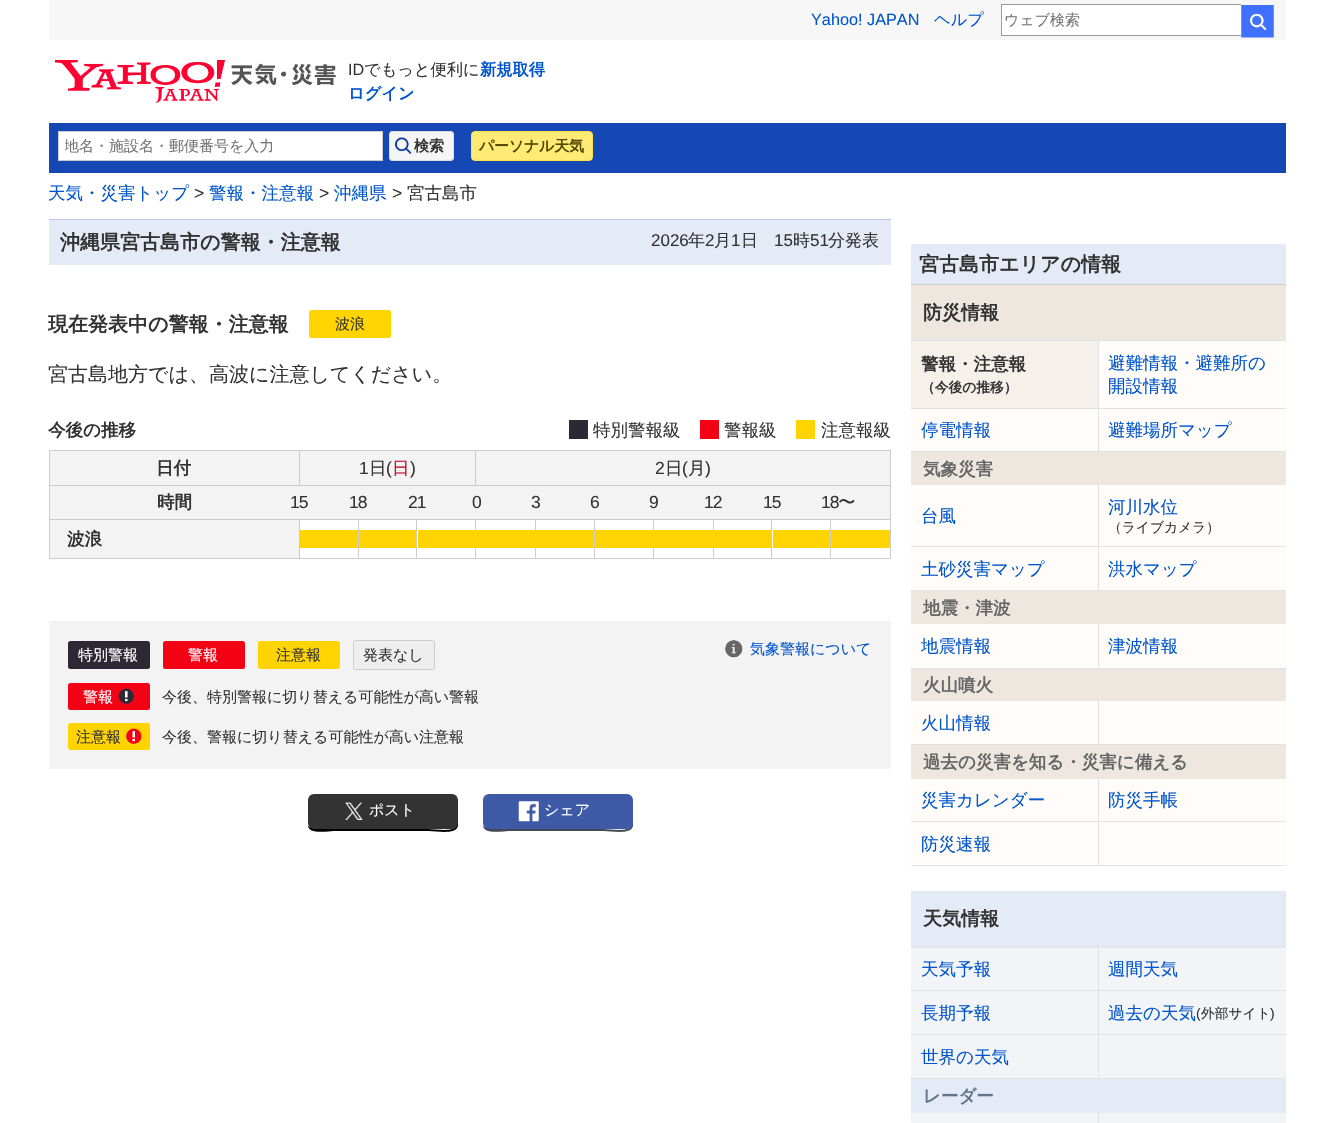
void draw(SkCanvas* canvas) {
	SkPaint fill;
	fill.setAntiAlias(true);
	auto makeFont = [&](const char* family, int weight, float size, bool italic = false) {
		SkFontStyle style(weight, SkFontStyle::kNormal_Width,
			italic ? SkFontStyle::kItalic_Slant : SkFontStyle::kUpright_Slant);
		SkFont result(fontMgr->matchFamilyStyle(family, style), size);
		result.setSubpixel(true);
		return result;
	};
	auto text = [&](const char* s, float x, float y, const SkFont& font) {
		canvas->drawString(s, x, y, font, fill);
	};
	auto spacedText = [&](const char* s, float x, float y, const SkFont& font, const SkPaint& ink, float letter, float word) {
		std::vector<SkGlyphID> glyphs(font.countText(s, strlen(s), SkTextEncoding::kUTF8));
		std::vector<float> xs(glyphs.size());
		font.textToGlyphs(s, strlen(s), SkTextEncoding::kUTF8, glyphs);
		font.getXPos(glyphs, xs, x);
		float extra = 0;
		for (size_t i = 0; i < glyphs.size(); i++) {
			xs[i] += extra;
			extra += letter + word * (glyphs[i] == font.unicharToGlyph(' '));
		}
		canvas->drawTextBlob(SkTextBlob::MakeFromPosHGlyphs(glyphs, xs, y, font), 0, 0, ink);
	};
	auto box = [&](float l, float t, float r, float b) {
		canvas->drawRect(SkRect::MakeLTRB(l, t, r, b), fill);
	};
	auto roundBox = [&](float l, float t, float r, float b, float radius) {
		canvas->drawRoundRect(SkRect::MakeLTRB(l, t, r, b), radius, radius, fill);
	};
	auto picture = [&](const char* path, float l, float t, float r, float b) {
		auto image = SkImages::DeferredFromEncodedData(SkData::MakeFromFileName(path));
		canvas->drawImageRect(image, SkRect::MakeLTRB(l, t, r, b), SkSamplingOptions());
	};
	canvas->clear(0xFFFFFFFF);
	fill.setColor(0xFFF7F7F8);
	box(49, 0, 1286, 40);
	fill.setColor(0xFFFFFFFF);
	box(1002, 5, 1241, 35);
	fill.setColor(0xFF999999);
	box(1001, 4, 1241, 5);
	box(1001, 35, 1241, 36);
	box(1001, 4, 1002, 36);
	picture("image0.png", 1241, 5, 1274, 38);
	picture("image1.png", 55, 60, 336, 103);
	fill.setColor(0xFF1548B5);
	box(49, 123, 1286, 173);
	fill.setColor(0xFFFFFFFF);
	canvas->drawRect(SkRect::MakeLTRB(58.5f, 131.5f, 382.5f, 160.5f), fill);
	fill.setStyle(SkPaint::kStroke_Style);
	fill.setStrokeWidth(1);
	fill.setColor(0xFFCCCCCC);
	canvas->drawRect(SkRect::MakeLTRB(58.5f, 131.5f, 382.5f, 160.5f), fill);
	fill.setStyle(SkPaint::kFill_Style);
	fill.setColor(0xFFF5F5F5);
	roundBox(389, 131, 454, 161, 4);
	picture("image2.png", 395, 137, 412, 154);
	fill.setStyle(SkPaint::kStroke_Style);
	fill.setColor(0xFFDCDCDC);
	canvas->drawRoundRect(SkRect::MakeLTRB(389.5f, 131.5f, 453.5f, 160.5f), 3.5f, 3.5f, fill);
	fill.setStyle(SkPaint::kFill_Style);
	fill.setColor(0xFFFFEA76);
	canvas->drawRoundRect(SkRect::MakeLTRB(471.5f, 131.5f, 592.5f, 160.5f), 3.5f, 3.5f, fill);
	fill.setStyle(SkPaint::kStroke_Style);
	fill.setColor(0xFFFFE243);
	canvas->drawRoundRect(SkRect::MakeLTRB(471.5f, 131.5f, 592.5f, 160.5f), 3.5f, 3.5f, fill);
	fill.setStyle(SkPaint::kFill_Style);
	fill.setColor(0xFFE5EAF7);
	box(49, 220, 891, 265);
	fill.setColor(0xFFBBC7E3);
	box(49, 219, 891, 220);
	fill.setColor(0xFFFFD400);
	roundBox(309, 310, 391, 338, 2.5f);
	fill.setColor(0xFF2D2934);
	box(569, 420, 588, 439);
	fill.setColor(0xFFF30216);
	box(700, 420, 719, 439);
	fill.setColor(0xFFFFD400);
	box(796, 420, 815, 439);
	fill.setColor(0xFFF3F3F3);
	box(50, 451, 299, 485);
	fill.setColor(0xFFCCCCCC);
	box(475, 450, 891, 451);
	box(830, 519, 891, 520);
	box(890, 485, 891, 559);
	box(890, 450, 891, 486);
	box(475, 485, 891, 486);
	box(475, 450, 476, 486);
	box(299, 450, 476, 451);
	box(299, 485, 476, 486);
	box(299, 450, 300, 486);
	box(49, 450, 300, 451);
	box(830, 558, 891, 559);
	box(830, 519, 831, 559);
	box(771, 519, 831, 520);
	box(771, 558, 831, 559);
	box(771, 519, 772, 559);
	box(713, 519, 773, 520);
	box(713, 558, 773, 559);
	box(713, 519, 714, 559);
	box(653, 519, 714, 520);
	box(653, 558, 714, 559);
	box(653, 519, 654, 559);
	box(594, 519, 654, 520);
	box(594, 558, 654, 559);
	box(594, 519, 595, 559);
	box(535, 519, 595, 520);
	box(535, 558, 595, 559);
	box(535, 519, 536, 559);
	box(475, 519, 536, 520);
	box(475, 558, 536, 559);
	box(475, 519, 476, 559);
	box(416, 519, 476, 520);
	box(416, 558, 476, 559);
	box(416, 519, 417, 559);
	box(358, 519, 418, 520);
	box(358, 558, 418, 559);
	box(358, 519, 359, 559);
	box(299, 519, 359, 520);
	box(299, 558, 359, 559);
	box(299, 519, 300, 559);
	box(49, 519, 300, 520);
	box(49, 558, 300, 559);
	box(49, 485, 50, 559);
	box(49, 485, 300, 486);
	box(49, 450, 50, 486);
	fill.setColor(0xFFF3F3F3);
	box(300, 451, 475, 485);
	box(476, 451, 890, 485);
	box(50, 486, 890, 519);
	box(50, 520, 299, 558);
	fill.setColor(0xFFFFD400);
	box(300, 530, 358, 548);
	box(359, 530, 416, 548);
	box(418, 530, 475, 548);
	box(476, 530, 535, 548);
	box(536, 530, 594, 548);
	box(595, 530, 653, 548);
	box(654, 530, 713, 548);
	box(714, 530, 771, 548);
	box(773, 530, 830, 548);
	box(831, 530, 890, 548);
	fill.setColor(0xFFF3F3F3);
	box(49, 621, 891, 769);
	fill.setColor(0xFF2D2934);
	roundBox(68, 641, 150, 669, 2.5f);
	fill.setColor(0xFFF30216);
	roundBox(163, 641, 245, 669, 2.5f);
	fill.setColor(0xFFFFD400);
	roundBox(258, 641, 340, 669, 2.5f);
	fill.setColor(0xFFEEEEEE);
	canvas->drawRoundRect(SkRect::MakeLTRB(353.5f, 640.5f, 434.5f, 669.5f), 2, 2, fill);
	fill.setStyle(SkPaint::kStroke_Style);
	fill.setColor(0xFFCCCCCC);
	canvas->drawRoundRect(SkRect::MakeLTRB(353.5f, 640.5f, 434.5f, 669.5f), 2, 2, fill);
	picture("image3.png", 725, 640, 743, 658);
	fill.setStyle(SkPaint::kFill_Style);
	fill.setColor(0xFFF30216);
	roundBox(68, 683, 150, 710, 2.5f);
	picture("image4.png", 118, 688, 134, 704);
	fill.setColor(0xFFFFD400);
	roundBox(68, 723, 150, 750, 2.5f);
	picture("image5.png", 126, 728, 142, 744);
	fill.setColor(0xFF000000);
	canvas->drawPath(SkPathBuilder().moveTo(308, 825).cubicTo(308, 835, 326, 831, 337, 831).lineTo(429, 831).cubicTo(437, 831, 456, 835, 458, 826).lineTo(458, 806).lineTo(457, 800).lineTo(457, 824).cubicTo(456, 833, 437, 829, 428, 829).lineTo(312, 828).cubicTo(310, 828, 309, 827, 308, 825).close().detach(), fill);
	fill.setColor(0xFF333333);
	roundBox(308, 794, 458, 829, 6);
	picture("image6.png", 345, 802, 363, 820);
	fill.setColor(0xFF424856);
	canvas->drawPath(SkPathBuilder().moveTo(483, 825).cubicTo(483, 835, 501, 831, 512, 831).lineTo(604, 831).cubicTo(612, 831, 631, 835, 633, 826).lineTo(633, 806).lineTo(632, 800).lineTo(632, 824).cubicTo(631, 833, 612, 829, 603, 829).lineTo(487, 828).cubicTo(485, 828, 484, 827, 483, 825).close().detach(), fill);
	fill.setColor(0xFF3E59A6);
	roundBox(483, 794, 633, 829, 6);
	picture("image7.png", 518, 801, 539, 822);
	fill.setColor(0xFFE5EAF7);
	box(911, 244, 1286, 284);
	fill.setColor(0xFFFFFCF9);
	box(911, 341, 1286, 865);
	fill.setColor(0xFFEEE7E0);
	box(911, 285, 1286, 340);
	fill.setColor(0xFFCCCCCC);
	box(911, 284, 1286, 285);
	fill.setColor(0xFFE1E3E2);
	box(911, 340, 1286, 341);
	fill.setColor(0xFFF6F0EB);
	box(911, 341, 1098, 408);
	fill.setColor(0xFFEEE7E0);
	box(911, 452, 1286, 485);
	fill.setColor(0xFFE1E3E2);
	box(911, 451, 1286, 452);
	box(1098, 341, 1099, 453);
	box(911, 408, 1286, 409);
	box(911, 590, 1286, 591);
	box(1098, 485, 1099, 591);
	box(911, 546, 1286, 547);
	fill.setColor(0xFFEEE7E0);
	box(911, 591, 1286, 624);
	fill.setColor(0xFFE1E3E2);
	box(911, 668, 1286, 669);
	box(1098, 624, 1099, 669);
	fill.setColor(0xFFEEE7E0);
	box(911, 669, 1286, 701);
	fill.setColor(0xFFE1E3E2);
	box(911, 744, 1286, 745);
	box(1098, 701, 1099, 745);
	fill.setColor(0xFFEEE7E0);
	box(911, 745, 1286, 779);
	fill.setColor(0xFFE1E3E2);
	box(911, 865, 1286, 866);
	box(1098, 779, 1099, 865);
	box(911, 821, 1286, 822);
	fill.setColor(0xFFF3F4F8);
	box(911, 948, 1286, 1123);
	fill.setColor(0xFFE5EAF7);
	box(911, 891, 1286, 948);
	fill.setColor(0xFFE1E3E2);
	box(911, 946, 1286, 947);
	box(911, 1078, 1286, 1079);
	box(1098, 948, 1099, 1079);
	box(911, 990, 1286, 991);
	box(911, 1034, 1286, 1035);
	fill.setColor(0xFFE5EAF7);
	box(911, 1079, 1286, 1113);
	fill.setColor(0xFFE1E3E2);
	box(1098, 1113, 1099, 1123);
	auto font1 = makeFont("Liberation Sans", 400, 16.25f);
	fill.setColor(0xFF0055CC);
	text("Yahoo! JAPAN", 811, 25, font1);
	auto font2 = makeFont("WenQuanYi Zen Hei", 500, 16.25f);
	text("ヘルプ", 934, 25, font2);
	auto font3 = makeFont("WenQuanYi Zen Hei", 500, 15);
	fill.setColor(0xFF757575);
	text("ウェブ検索", 1004, 25, font3);
	fill.setColor(0xFF333333);
	text("ID", 348, 75, font1);
	text("でもっと便利に", 364, 75, font2);
	auto font4 = makeFont("WenQuanYi Zen Hei", 700, 16.25f);
	fill.setColor(0xFF0055CC);
	text("新規取得", 480, 75, font4);
	text("ログイン", 348, 99, font4);
	canvas->save();
	canvas->clipRect(SkRect::MakeLTRB(65, 136, 375, 158));
	fill.setColor(0xFF757575);
	text("地名・施設名・郵便番号を入力", 64, 151, font3);
	canvas->restore();
	auto font5 = makeFont("WenQuanYi Zen Hei", 700, 15);
	fill.setColor(0xFF333333);
	text("検索", 414, 151, font5);
	fill.setColor(0xFF514900);
	spacedText("パーソナル天気", 479, 151, font5, fill, -0.25f, 0);
	auto font6 = makeFont("WenQuanYi Zen Hei", 500, 17.5f);
	fill.setColor(0xFF0055CC);
	text("天気・災害トップ", 48, 199, font6);
	auto font7 = makeFont("Liberation Sans", 400, 17.5f);
	fill.setColor(0xFF333333);
	text(">", 194, 199, font7);
	fill.setColor(0xFF0055CC);
	text("警報・注意報", 209, 199, font6);
	fill.setColor(0xFF333333);
	text(">", 319, 199, font7);
	fill.setColor(0xFF0055CC);
	text("沖縄県", 334, 199, font6);
	fill.setColor(0xFF333333);
	text(">", 392, 199, font7);
	text("宮古島市", 407, 199, font6);
	auto font8 = makeFont("WenQuanYi Zen Hei", 700, 20);
	text("沖縄県宮古島市の警報・注意報", 60, 249, font8);
	auto font9 = makeFont("Liberation Sans", 400, 17);
	text("2026", 651, 246, font9);
	auto font10 = makeFont("WenQuanYi Zen Hei", 500, 17);
	text("年", 688, 246, font10);
	text("2", 705, 246, font9);
	text("月", 714, 246, font10);
	text("1", 731, 246, font9);
	text("日", 741, 246, font10);
	text("15", 774, 246, font9);
	text("時", 793, 246, font10);
	text("51", 810, 246, font9);
	text("分発表", 828, 246, font10);
	text("現在発表中の警報・注意報", 48, 331, font8);
	text("波浪", 335, 329, font3);
	auto font11 = makeFont("WenQuanYi Zen Hei", 500, 20);
	text("宮古島地方では、高波に注意してください。", 48, 381, font11);
	auto font12 = makeFont("WenQuanYi Zen Hei", 700, 17.5f);
	text("今後の推移", 48, 436, font12);
	text("特別警報級", 593, 436, font6);
	text("警報級", 724, 436, font6);
	text("注意報級", 821, 436, font6);
	text("日付", 156, 474, font12);
	text("1", 359, 474, font7);
	text("日", 369, 474, font6);
	text("(", 386, 474, font7);
	fill.setColor(0xFFC1132E);
	text("日", 392, 474, font6);
	fill.setColor(0xFF333333);
	text(")", 410, 474, font7);
	text("2", 655, 474, font7);
	text("日", 665, 474, font6);
	text("(", 682, 474, font7);
	text("月", 688, 474, font6);
	text(")", 705, 474, font7);
	text("時間", 157, 508, font12);
	spacedText("15", 290, 508, font7, fill, -1, 0);
	spacedText("18", 349, 508, font7, fill, -1, 0);
	spacedText("21", 408, 508, font7, fill, -1, 0);
	spacedText("0", 472, 508, font7, fill, -1, 0);
	spacedText("3", 531, 508, font7, fill, -1, 0);
	spacedText("6", 590, 508, font7, fill, -1, 0);
	spacedText("9", 649, 508, font7, fill, -1, 0);
	spacedText("12", 704, 508, font7, fill, -1, 0);
	spacedText("15", 763, 508, font7, fill, -1, 0);
	spacedText("18", 821, 508, font7, fill, -1, 0);
	spacedText("〜", 838, 508, font6, fill, -1, 0);
	text("波浪", 67, 545, font12);
	fill.setColor(0xFFFFFFFF);
	text("特別警報", 78, 660, font3);
	text("警報", 188, 660, font3);
	fill.setColor(0xFF333333);
	text("注意報", 276, 660, font3);
	text("発表なし", 363, 660, font3);
	fill.setColor(0xFF0055CC);
	text("気象警報について", 750, 654, font3);
	fill.setColor(0xFFFFFFFF);
	text("警報", 83, 702, font3);
	fill.setColor(0xFF333333);
	text("今後、特別警報に切り替える可能性が高い警報", 162, 702, font3);
	text("注意報", 76, 742, font3);
	text("今後、警報に切り替える可能性が高い注意報", 162, 742, font3);
	fill.setColor(0xFFFFFFFF);
	text("ポスト", 369, 815, font3);
	text("シェア", 544, 815, font3);
	fill.setColor(0xFF333333);
	text("宮古島市エリアの情報", 919, 271, font8);
	auto font13 = makeFont("WenQuanYi Zen Hei", 700, 19);
	text("防災情報", 923, 319, font13);
	text("警報・注意報", 921, 370, font12);
	auto font14 = makeFont("WenQuanYi Zen Hei", 700, 13.75f);
	text("（今後の推移）", 921, 392, font14);
	fill.setColor(0xFF0055CC);
	text("避難情報・避難所の", 1108, 369, font6);
	text("開設情報", 1108, 392, font6);
	text("停電情報", 921, 436, font6);
	text("避難場所マップ", 1108, 436, font6);
	fill.setColor(0xFF666666);
	text("気象災害", 923, 475, font12);
	fill.setColor(0xFF0055CC);
	text("台風", 921, 522, font6);
	text("河川水位", 1108, 513, font6);
	auto font15 = makeFont("WenQuanYi Zen Hei", 500, 13.75f);
	fill.setColor(0xFF333333);
	text("（ライブカメラ）", 1108, 532, font15);
	fill.setColor(0xFF0055CC);
	text("土砂災害マップ", 921, 575, font6);
	text("洪水マップ", 1108, 575, font6);
	fill.setColor(0xFF666666);
	text("地震・津波", 923, 614, font12);
	fill.setColor(0xFF0055CC);
	text("地震情報", 921, 652, font6);
	text("津波情報", 1108, 652, font6);
	fill.setColor(0xFF666666);
	text("火山噴火", 923, 691, font12);
	fill.setColor(0xFF0055CC);
	text("火山情報", 921, 729, font6);
	fill.setColor(0xFF666666);
	text("過去の災害を知る・災害に備える", 923, 768, font12);
	fill.setColor(0xFF0055CC);
	text("災害カレンダー", 921, 806, font6);
	text("防災手帳", 1108, 806, font6);
	text("防災速報", 921, 850, font6);
	fill.setColor(0xFF333333);
	text("天気情報", 923, 925, font13);
	fill.setColor(0xFF0055CC);
	text("天気予報", 921, 975, font6);
	text("週間天気", 1108, 975, font6);
	text("長期予報", 921, 1019, font6);
	text("過去の天気", 1108, 1019, font6);
	auto font16 = makeFont("Liberation Sans", 400, 13.75f);
	fill.setColor(0xFF333333);
	text("(", 1196, 1018, font16);
	text("外部サイト", 1201, 1018, font15);
	text(")", 1270, 1018, font16);
	fill.setColor(0xFF0055CC);
	text("世界の天気", 921, 1063, font6);
	fill.setColor(0xFF617589);
	text("レーダー", 923, 1102, font12);
}
